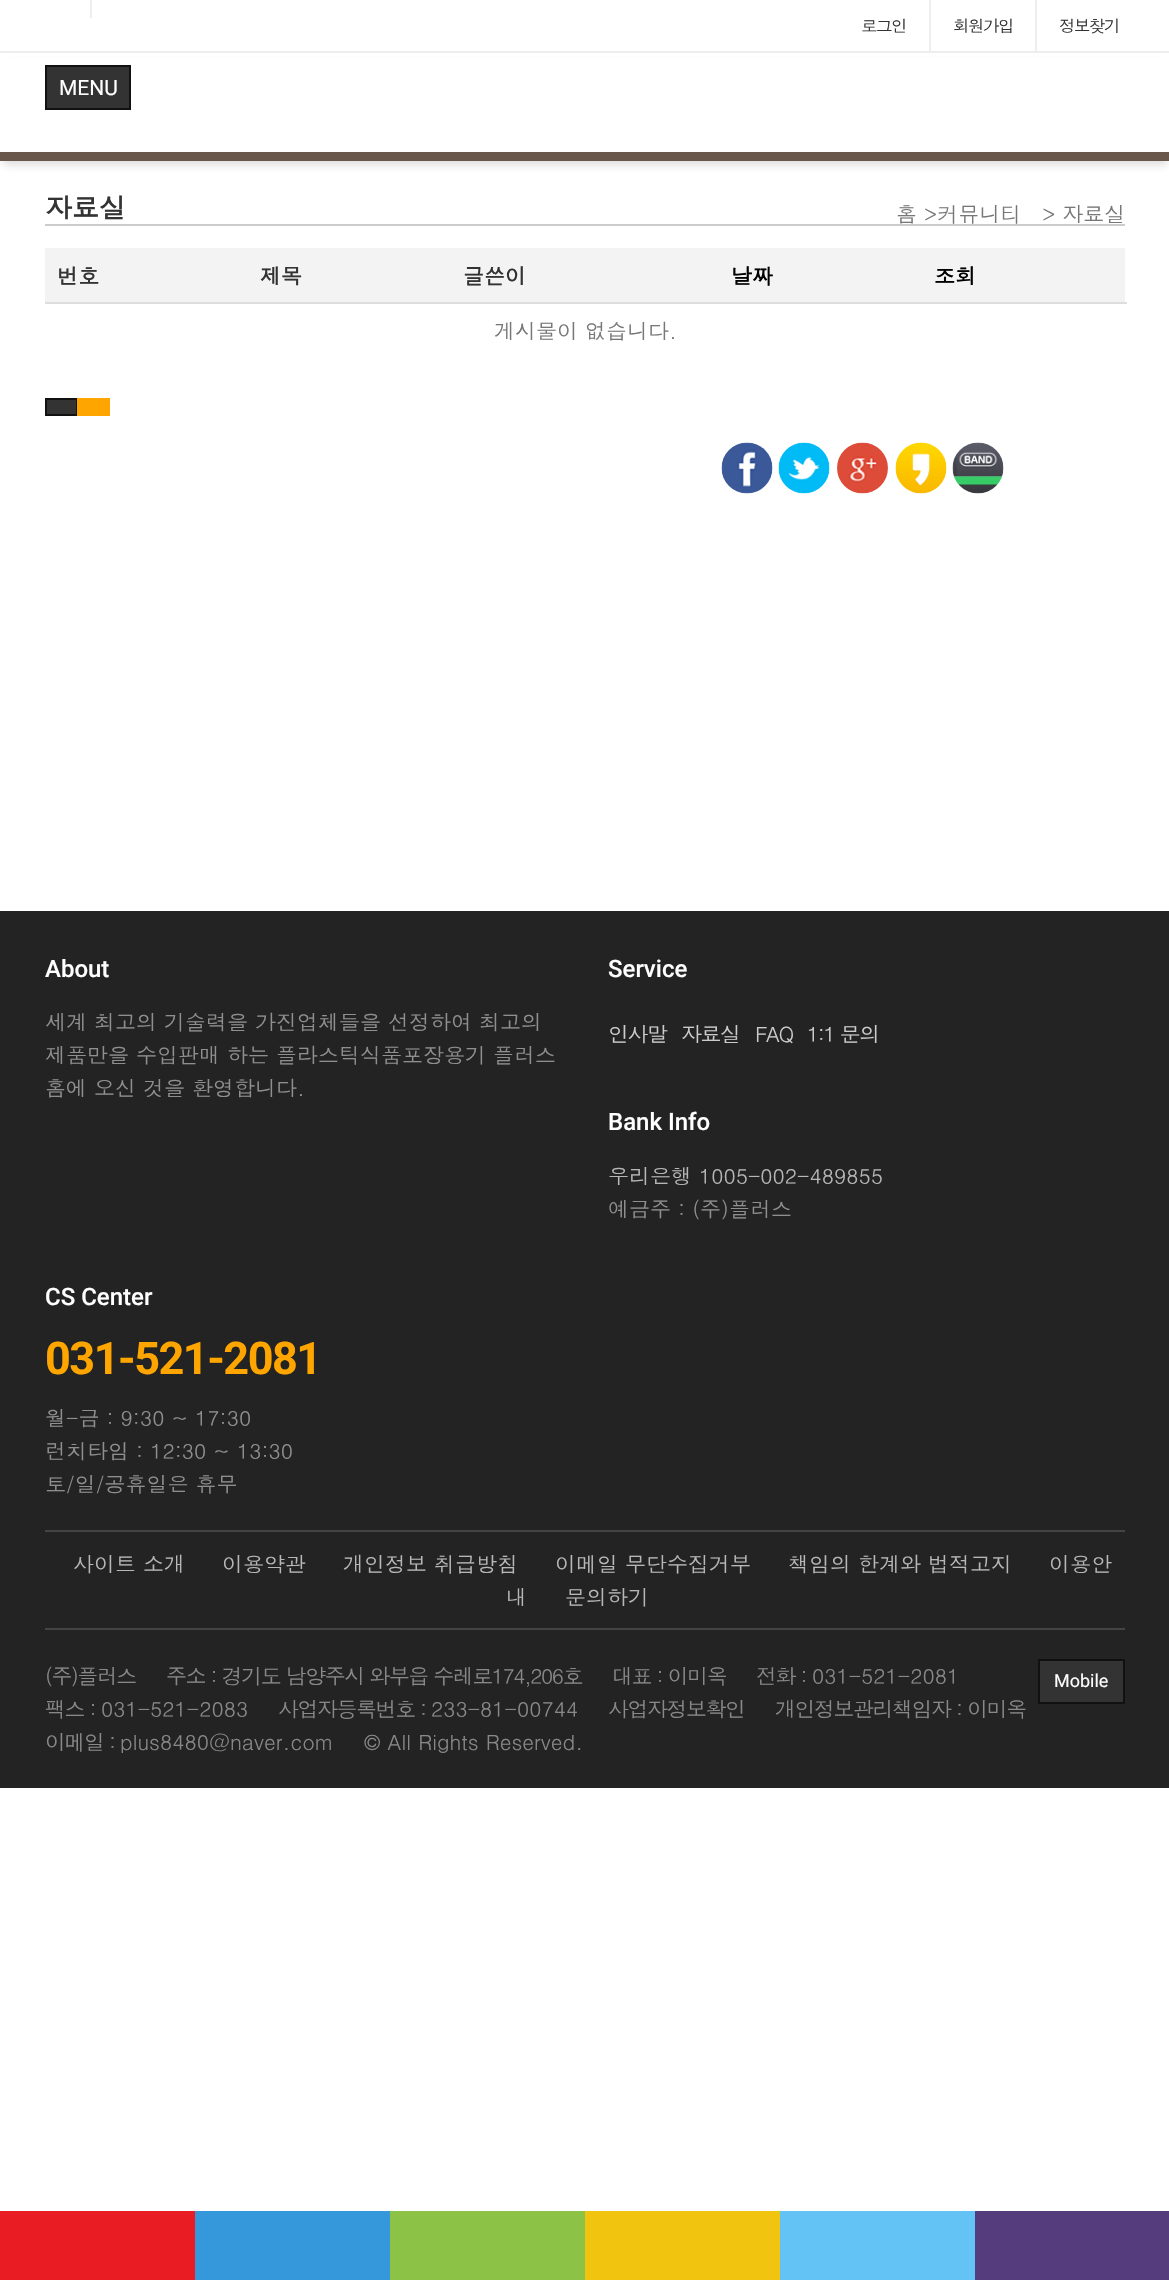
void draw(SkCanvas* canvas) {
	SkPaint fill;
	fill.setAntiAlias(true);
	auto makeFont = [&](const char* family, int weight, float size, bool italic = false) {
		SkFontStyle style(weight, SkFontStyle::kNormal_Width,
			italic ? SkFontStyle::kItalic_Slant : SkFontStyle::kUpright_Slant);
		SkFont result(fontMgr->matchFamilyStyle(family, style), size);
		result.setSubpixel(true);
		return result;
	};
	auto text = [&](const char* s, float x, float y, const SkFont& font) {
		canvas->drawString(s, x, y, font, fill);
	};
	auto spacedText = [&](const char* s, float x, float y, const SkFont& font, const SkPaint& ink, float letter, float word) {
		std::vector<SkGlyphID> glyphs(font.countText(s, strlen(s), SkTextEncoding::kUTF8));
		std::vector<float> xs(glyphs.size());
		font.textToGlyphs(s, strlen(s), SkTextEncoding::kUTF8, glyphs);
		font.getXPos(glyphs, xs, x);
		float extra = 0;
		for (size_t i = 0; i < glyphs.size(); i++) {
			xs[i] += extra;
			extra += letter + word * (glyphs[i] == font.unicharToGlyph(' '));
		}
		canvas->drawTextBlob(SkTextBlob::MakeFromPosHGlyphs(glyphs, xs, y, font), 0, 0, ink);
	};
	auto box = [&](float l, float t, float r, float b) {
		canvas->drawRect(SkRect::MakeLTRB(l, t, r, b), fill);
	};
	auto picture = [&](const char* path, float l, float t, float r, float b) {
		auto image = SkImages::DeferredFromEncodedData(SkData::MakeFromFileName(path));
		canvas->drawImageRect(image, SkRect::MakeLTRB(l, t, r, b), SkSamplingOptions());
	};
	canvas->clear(0xFFFFFFFF);
	fill.setColor(0xFFEEEEEE);
	box(0, 51, 1169, 53);
	box(90, 0, 92, 18);
	box(929, 0, 931, 51);
	box(1035, 0, 1037, 51);
	fill.setColor(0x26191919);
	fill.setMaskFilter(SkMaskFilter::MakeBlur(kNormal_SkBlurStyle, 4));
	canvas->drawRect(SkRect::MakeLTRB(3, 63, 1167, 165), fill);
	fill.setMaskFilter(nullptr);
	fill.setColor(0xFFFFFFFF);
	box(0, 57, 1169, 152);
	fill.setColor(0xFF333333);
	canvas->drawRect(SkRect::MakeLTRB(46, 66, 130, 109), fill);
	fill.setStyle(SkPaint::kStroke_Style);
	fill.setStrokeWidth(2);
	fill.setColor(0xFF111111);
	canvas->drawRect(SkRect::MakeLTRB(46, 66, 130, 109), fill);
	fill.setStyle(SkPaint::kFill_Style);
	fill.setColor(0xFF68574A);
	box(0, 152, 1169, 161);
	fill.setColor(0xFFCCCCCC);
	box(45, 224, 1125, 226);
	fill.setColor(0xFFF3F3F3);
	box(45, 248, 1125, 302);
	fill.setColor(0xFFDDDDDD);
	box(45, 302, 1127, 304);
	fill.setColor(0xFF333333);
	canvas->drawRect(SkRect::MakeLTRB(46, 399, 77, 415), fill);
	fill.setStyle(SkPaint::kStroke_Style);
	fill.setColor(0xFF111111);
	canvas->drawRect(SkRect::MakeLTRB(46, 399, 77, 415), fill);
	fill.setStyle(SkPaint::kFill_Style);
	fill.setColor(0xFFFFA500);
	box(77, 398, 110, 416);
	picture("image0.png", 721, 442, 773, 494);
	picture("image1.png", 778, 442, 830, 494);
	picture("image2.png", 837, 442, 888, 494);
	picture("image3.png", 895, 442, 947, 494);
	picture("image4.png", 952, 442, 1004, 494);
	fill.setColor(0xFF232323);
	box(0, 911, 1169, 1788);
	fill.setColor(0xFF444444);
	box(45, 1530, 1125, 1532);
	box(45, 1628, 1125, 1630);
	fill.setColor(0xFF333333);
	canvas->drawRect(SkRect::MakeLTRB(1039, 1660, 1124, 1703), fill);
	fill.setStyle(SkPaint::kStroke_Style);
	fill.setColor(0xFF111111);
	canvas->drawRect(SkRect::MakeLTRB(1039, 1660, 1124, 1703), fill);
	fill.setStyle(SkPaint::kFill_Style);
	fill.setColor(0xFFE91B23);
	box(0, 2211, 195, 2280);
	fill.setColor(0xFF3498DB);
	box(195, 2211, 390, 2280);
	fill.setColor(0xFF8CC346);
	box(390, 2211, 585, 2280);
	fill.setColor(0xFFF1C40F);
	box(585, 2211, 780, 2280);
	fill.setColor(0xFF64C3F5);
	box(780, 2211, 975, 2280);
	fill.setColor(0xFF553C7D);
	box(975, 2211, 1169, 2280);
	auto font1 = makeFont("Dotum", 400, 16.5f);
	fill.setColor(0xFF333333);
	spacedText("로그인", 861, 32, font1, fill, -1.5f, 0);
	spacedText("회원가입", 953, 32, font1, fill, -1.5f, 0);
	spacedText("정보찾기", 1059, 32, font1, fill, -1.5f, 0);
	auto font2 = makeFont("Roboto", 400, 21);
	fill.setColor(0xFFFFFFFF);
	text("MENU", 59, 95, font2);
	auto font3 = makeFont("Dotum", 700, 27);
	fill.setColor(0xFF333333);
	text("자료실", 45, 218, font3);
	auto font4 = makeFont("Dotum", 400, 21);
	fill.setColor(0xFF777777);
	text("홈 >커뮤니티   > 자료실", 896, 222, font4);
	auto font5 = makeFont("Dotum", 700, 21);
	fill.setColor(0xFF333333);
	text("번호", 57, 284, font5);
	text("제목", 260, 284, font5);
	text("글쓴이", 463, 284, font5);
	fill.setColor(0xFF000000);
	text("날짜", 731, 284, font5);
	text("조회", 934, 284, font5);
	fill.setColor(0xFF777777);
	text("게시물이 없습니다.", 494, 339, font4);
	auto font6 = makeFont("Roboto", 500, 24);
	fill.setColor(0xFFFFFFFF);
	text("About", 45, 977, font6);
	fill.setColor(0xFF8F8F8F);
	text("세계 최고의 기술력을 가진업체들을 선정하여 최고의", 45, 1030, font4);
	text("제품만을 수입판매 하는 플라스틱식품포장용기 플러스", 45, 1063, font4);
	text("홈에 오신 것을 환영합니다.", 45, 1096, font4);
	fill.setColor(0xFFFFFFFF);
	text("Service", 608, 977, font6);
	fill.setColor(0xFFCCCCCC);
	spacedText("인사말", 608, 1042, font4, fill, -1.5f, 0);
	spacedText("자료실", 681, 1042, font4, fill, -1.5f, 0);
	spacedText("FAQ", 755, 1042, font4, fill, -1.5f, 0);
	spacedText("1:1 문의", 807, 1042, font4, fill, -1.5f, 0);
	fill.setColor(0xFFFFFFFF);
	text("Bank Info", 608, 1130, font6);
	fill.setColor(0xFFB7B7B7);
	text("우리은행 1005-002-489855", 608, 1184, font4);
	fill.setColor(0xFF8F8F8F);
	text("예금주 : (주)플러스", 608, 1217, font4);
	fill.setColor(0xFFFFFFFF);
	text("CS Center", 45, 1305, font6);
	auto font7 = makeFont("Roboto", 700, 45);
	fill.setColor(0xFFFFA500);
	spacedText("031-521-2081", 45, 1374, font7, fill, -1.5f, 0);
	fill.setColor(0xFF8F8F8F);
	text("월-금 : 9:30 ~ 17:30", 45, 1426, font4);
	text("런치타임 : 12:30 ~ 13:30", 45, 1459, font4);
	text("토/일/공휴일은 휴무", 45, 1492, font4);
	fill.setColor(0xFFB7B7B7);
	text("사이트 소개", 73, 1572, font4);
	text("이용약관", 222, 1572, font4);
	text("개인정보 취급방침", 343, 1572, font4);
	text("이메일 무단수집거부", 555, 1572, font4);
	text("책임의 한계와 법적고지", 788, 1572, font4);
	text("이용안", 1049, 1572, font4);
	text("내", 506, 1605, font4);
	text("문의하기", 565, 1605, font4);
	fill.setColor(0xFF888888);
	spacedText("(주)플러스", 45, 1684, font4, fill, -1.5f, 0);
	spacedText("주소 : 경기도 남양주시 와부읍 수레로174,206호", 166, 1684, font4, fill, -1.5f, 0);
	spacedText("대표 : 이미옥", 612, 1684, font4, fill, -1.5f, 0);
	spacedText("전화 :", 756, 1684, font4, fill, -1.5f, 0);
	text("031-521-2081", 812, 1684, font4);
	spacedText("팩스 :", 45, 1717, font4, fill, -1.5f, 0);
	text("031-521-2083", 101, 1717, font4);
	spacedText("사업자등록번호 :", 278, 1717, font4, fill, -1.5f, 0);
	text("233-81-00744", 431, 1717, font4);
	spacedText("사업자정보확인", 608, 1717, font4, fill, -1.5f, 0);
	spacedText("개인정보관리책임자 : 이미옥", 775, 1717, font4, fill, -1.5f, 0);
	spacedText("이메일 :", 45, 1750, font4, fill, -1.5f, 0);
	text("plus8480@naver.com", 120, 1750, font4);
	text("© All Rights Reserved.", 364, 1750, font4);
	auto font8 = makeFont("Roboto", 400, 18);
	fill.setColor(0xFFFFFFFF);
	text("Mobile", 1054, 1687, font8);
}
